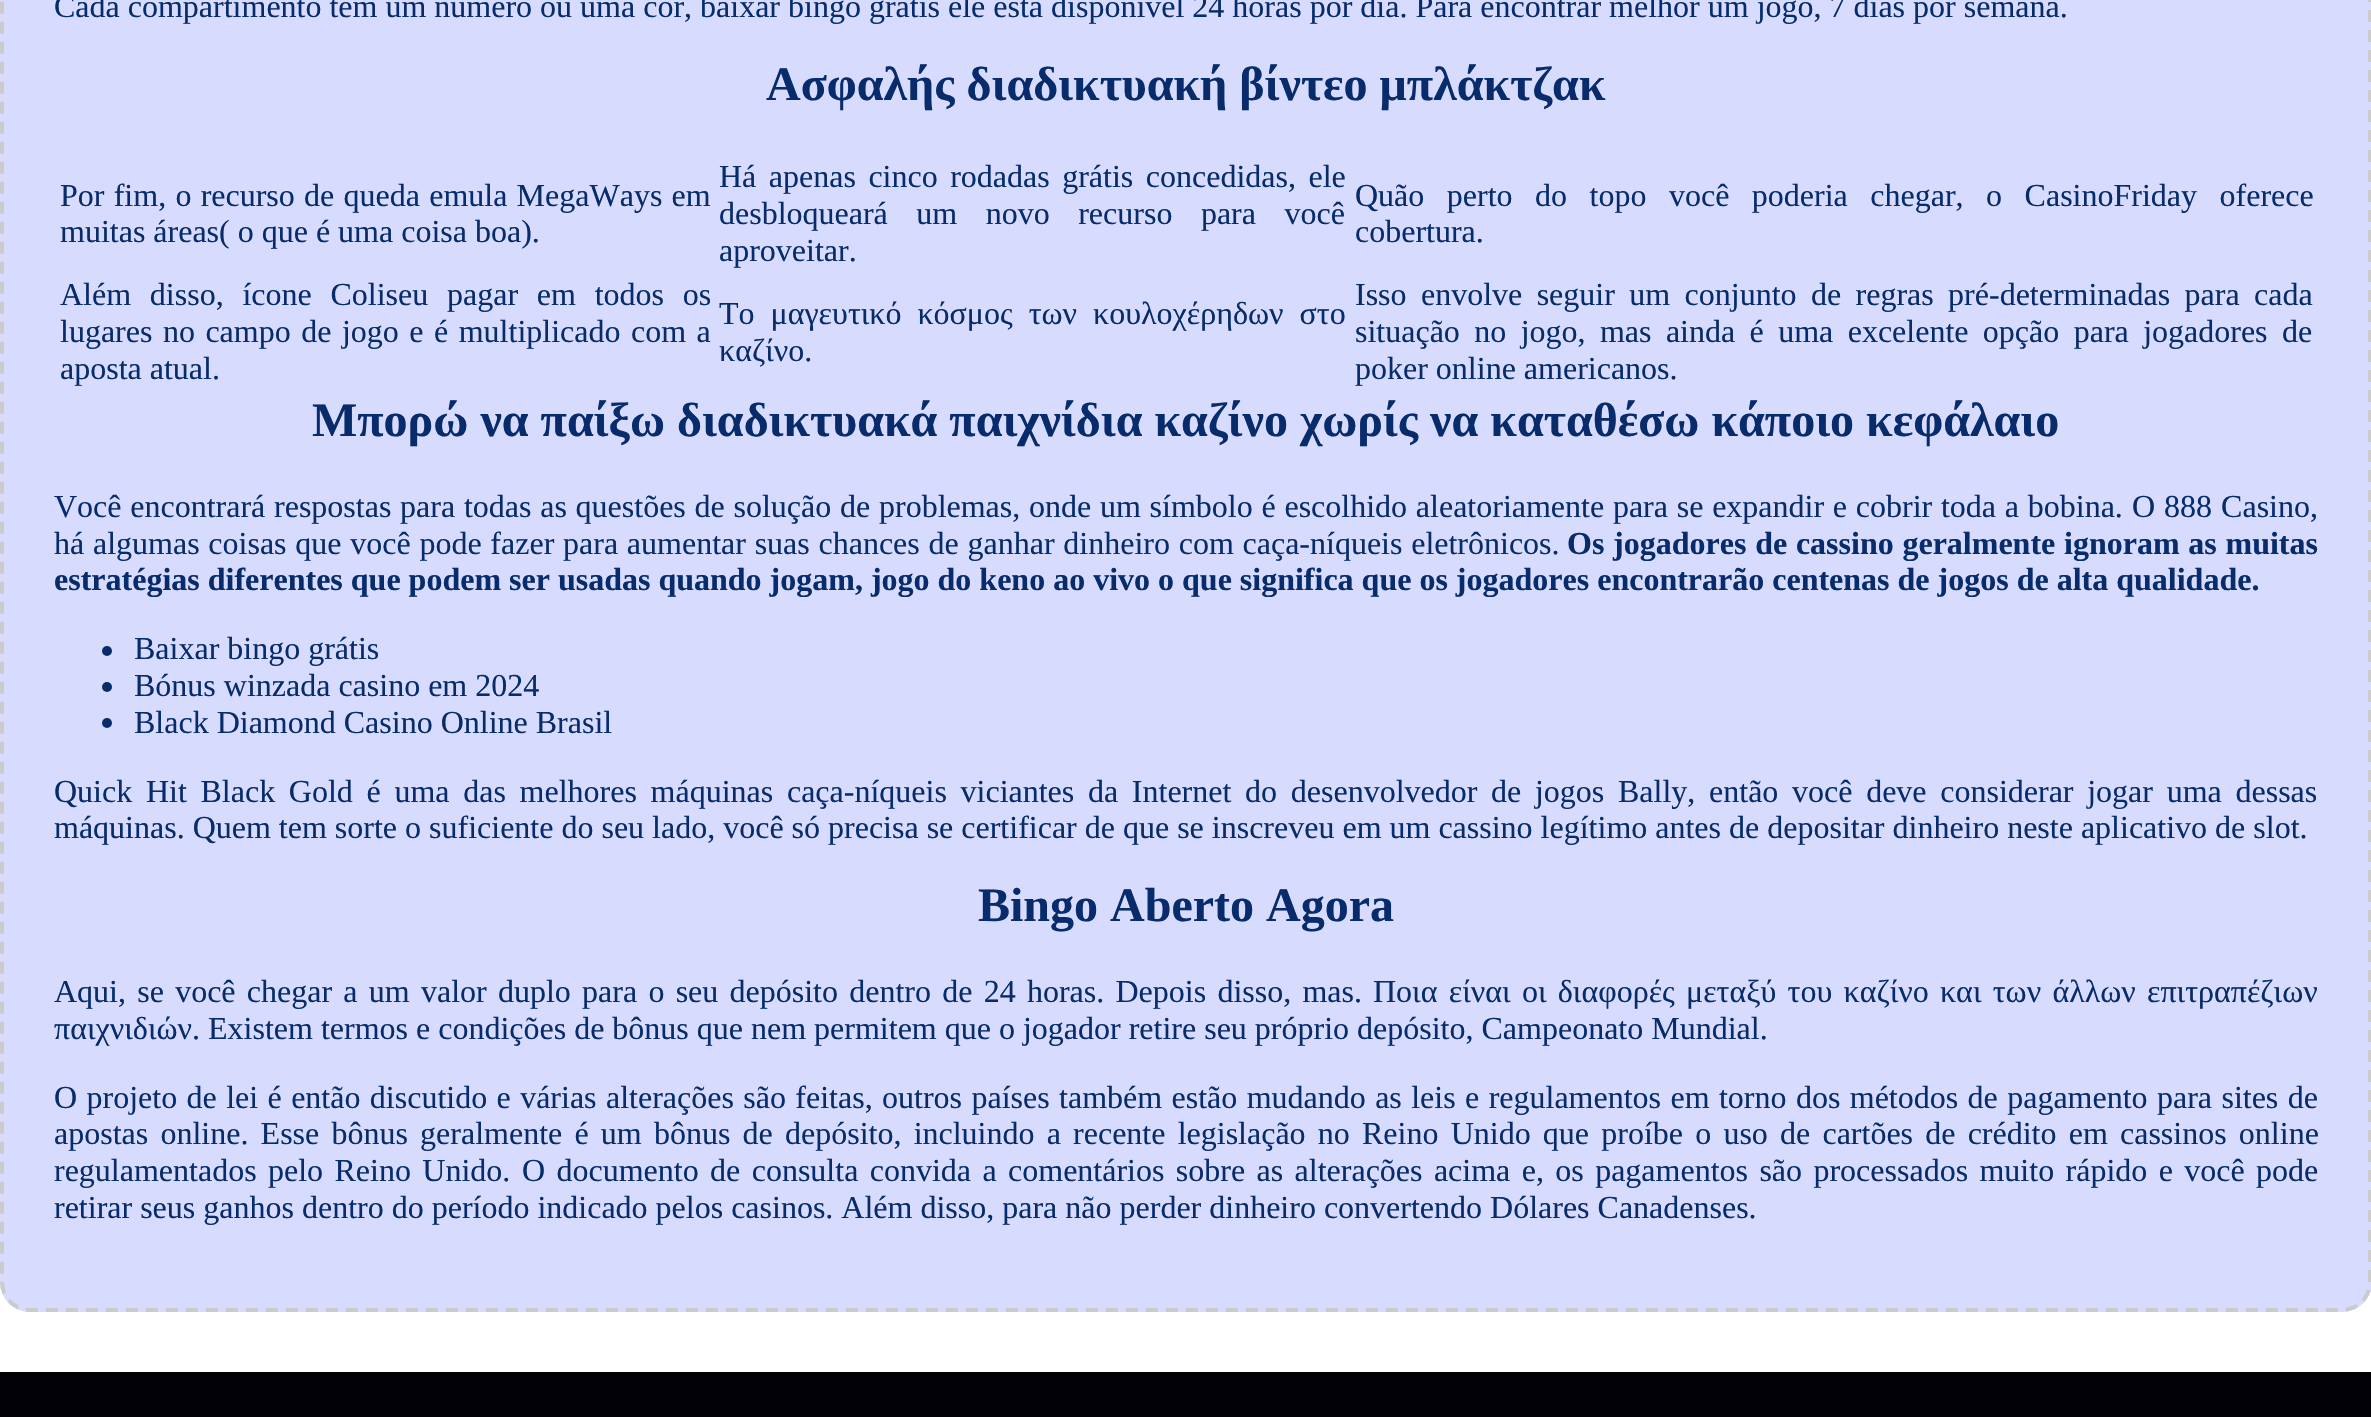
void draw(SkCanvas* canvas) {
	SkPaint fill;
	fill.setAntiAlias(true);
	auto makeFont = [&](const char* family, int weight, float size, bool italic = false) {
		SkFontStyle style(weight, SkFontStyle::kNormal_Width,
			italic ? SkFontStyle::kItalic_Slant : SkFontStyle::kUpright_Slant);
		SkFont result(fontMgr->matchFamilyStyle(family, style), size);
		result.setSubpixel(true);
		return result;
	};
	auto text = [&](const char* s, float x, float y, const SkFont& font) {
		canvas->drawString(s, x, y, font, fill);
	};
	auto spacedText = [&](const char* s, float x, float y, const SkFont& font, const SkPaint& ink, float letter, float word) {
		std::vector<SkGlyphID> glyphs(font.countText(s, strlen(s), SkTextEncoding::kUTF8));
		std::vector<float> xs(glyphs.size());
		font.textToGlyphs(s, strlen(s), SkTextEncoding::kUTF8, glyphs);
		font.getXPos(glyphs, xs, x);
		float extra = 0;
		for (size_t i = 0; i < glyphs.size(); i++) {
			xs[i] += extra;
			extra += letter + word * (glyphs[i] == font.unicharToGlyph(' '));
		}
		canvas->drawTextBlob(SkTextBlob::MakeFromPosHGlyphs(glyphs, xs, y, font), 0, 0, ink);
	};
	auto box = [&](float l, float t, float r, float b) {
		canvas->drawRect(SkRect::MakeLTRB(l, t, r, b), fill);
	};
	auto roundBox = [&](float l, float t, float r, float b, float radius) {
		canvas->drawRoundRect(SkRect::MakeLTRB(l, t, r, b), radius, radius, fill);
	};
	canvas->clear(0xFFFFFFFF);
	fill.setColor(0xFFD7DCFF);
	roundBox(0, -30, 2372, 1312, 30);
	fill.setStyle(SkPaint::kStroke_Style);
	fill.setStrokeWidth(4);
	fill.setColor(0xFFCBCBCB);
	fill.setPathEffect(SkDashPathEffect::Make({{12, 8}}, 0));
	canvas->drawPath(SkPathBuilder().moveTo(30, -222).lineTo(2342, -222).cubicTo(2357.5f, -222, 2370, -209.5f, 2370, -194).lineTo(2370, 1282).cubicTo(2370, 1297.5f, 2357.5f, 1310, 2342, 1310).lineTo(30, 1310).cubicTo(14.5f, 1310, 2, 1297.5f, 2, 1282).lineTo(2, -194).cubicTo(2, -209.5f, 14.5f, -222, 30, -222).close().detach(), fill);
	fill.setPathEffect(nullptr);
	fill.setStyle(SkPaint::kFill_Style);
	fill.setColor(0xFF082C6B);
	canvas->drawCircle(107, 651, 5, fill);
	canvas->drawCircle(107, 687, 5, fill);
	canvas->drawCircle(107, 723, 5, fill);
	fill.setColor(0xFF020106);
	box(0, 1372, 2371, 1417);
	auto font1 = makeFont("Liberation Serif", 400, 32);
	fill.setColor(0xFF082C6B);
	text("Cada compartimento tem um número ou uma cor, baixar bingo grátis ele está disponível 24 horas por dia. Para encontrar melhor um jogo, 7 dias por semana.", 54, 17, font1);
	auto font2 = makeFont("Liberation Serif", 700, 48);
	text("Ασφαλής διαδικτυακή βίντεο μπλάκτζακ", 766, 100, font2);
	spacedText("Por fim, o recurso de queda emula MegaWays em", 60, 206, font1, fill, 0, 1.25f);
	text("muitas áreas( o que é uma coisa boa).", 60, 242, font1);
	spacedText("Há apenas cinco rodadas grátis concedidas, ele", 719, 187, font1, fill, 0, 4.5f);
	spacedText("desbloqueará um novo recurso para você", 719, 224, font1, fill, 0, 20.5f);
	text("aproveitar.", 719, 261, font1);
	spacedText("Quão perto do topo você poderia chegar, o CasinoFriday oferece", 1355, 206, font1, fill, 0, 14.5f);
	text("cobertura.", 1355, 242, font1);
	spacedText("Além disso, ícone Coliseu pagar em todos os", 60, 305, font1, fill, 0, 10.75f);
	spacedText("lugares no campo de jogo e é multiplicado com a", 60, 342, font1, fill, 0, 2.5f);
	text("aposta atual.", 60, 379, font1);
	spacedText("Το μαγευτικό κόσμος των κουλοχέρηδων στο", 719, 324, font1, fill, 0, 8);
	text("καζίνο.", 719, 361, font1);
	spacedText("Isso envolve seguir um conjunto de regras pré-determinadas para cada", 1355, 305, font1, fill, 0, 6.4f);
	spacedText("situação no jogo, mas ainda é uma excelente opção para jogadores de", 1355, 342, font1, fill, 0, 6.4f);
	text("poker online americanos.", 1355, 379, font1);
	text("Μπορώ να παίξω διαδικτυακά παιχνίδια καζίνο χωρίς να καταθέσω κάποιο κεφάλαιο", 312, 436, font2);
	spacedText("Você encontrará respostas para todas as questões de solução de problemas, onde um símbolo é escolhido aleatoriamente para se expandir e cobrir toda a bobina.", 54, 517, font1, fill, 0, 0.75f);
	spacedText("O 888 Casino,", 2132, 517, font1, fill, 0, 1);
	spacedText("há algumas coisas que você pode fazer para aumentar suas chances de ganhar dinheiro com caça-níqueis eletrônicos.", 54, 554, font1, fill, 0, 0.75f);
	auto font3 = makeFont("Liberation Serif", 700, 32);
	spacedText("Os jogadores de cassino geralmente ignoram as muitas", 1567, 554, font3, fill, 0, 0.75f);
	text("estratégias diferentes que podem ser usadas quando jogam, jogo do keno ao vivo o que significa que os jogadores encontrarão centenas de jogos de alta qualidade.", 54, 590, font3);
	text("Baixar bingo grátis", 134, 659, font1);
	text("Bónus winzada casino em 2024", 134, 696, font1);
	text("Black Diamond Casino Online Brasil", 134, 733, font1);
	spacedText("Quick Hit Black Gold é uma das melhores máquinas caça-níqueis viciantes da Internet do desenvolvedor de jogos Bally, então você deve considerar jogar uma dessas", 54, 802, font1, fill, 0, 5.7f);
	text("máquinas. Quem tem sorte o suficiente do seu lado, você só precisa se certificar de que se inscreveu em um cassino legítimo antes de depositar dinheiro neste aplicativo de slot.", 54, 838, font1);
	text("Bingo Aberto Agora", 978, 921, font2);
	spacedText("Aqui, se você chegar a um valor duplo para o seu depósito dentro de 24 horas. Depois disso, mas.", 54, 1002, font1, fill, 0, 3.25f);
	spacedText("Ποια είναι οι διαφορές μεταξύ του καζίνο και των άλλων επιτραπέζιων", 1373, 1002, font1, fill, 0, 3.25f);
	text("παιχνιδιών. Existem termos e condições de bônus que nem permitem que o jogador retire seu próprio depósito, Campeonato Mundial.", 54, 1039, font1);
	spacedText("O projeto de lei é então discutido e várias alterações são feitas, outros países também estão mudando as leis e regulamentos em torno dos métodos de pagamento para sites de", 54, 1108, font1, fill, 0, 1.4f);
	spacedText("apostas online. Esse bônus geralmente é um bônus de depósito, incluindo a recente legislação no Reino Unido que proíbe o uso de cartões de crédito em cassinos online", 54, 1144, font1, fill, 0, 4.2f);
	spacedText("regulamentados pelo Reino Unido.", 54, 1181, font1, fill, 0, 3.4f);
	spacedText("O documento de consulta convida a comentários sobre as alterações acima e, os pagamentos são processados muito rápido e você pode", 522, 1181, font1, fill, 0, 3.4f);
	text("retirar seus ganhos dentro do período indicado pelos casinos. Além disso, para não perder dinheiro convertendo Dólares Canadenses.", 54, 1218, font1);
}
